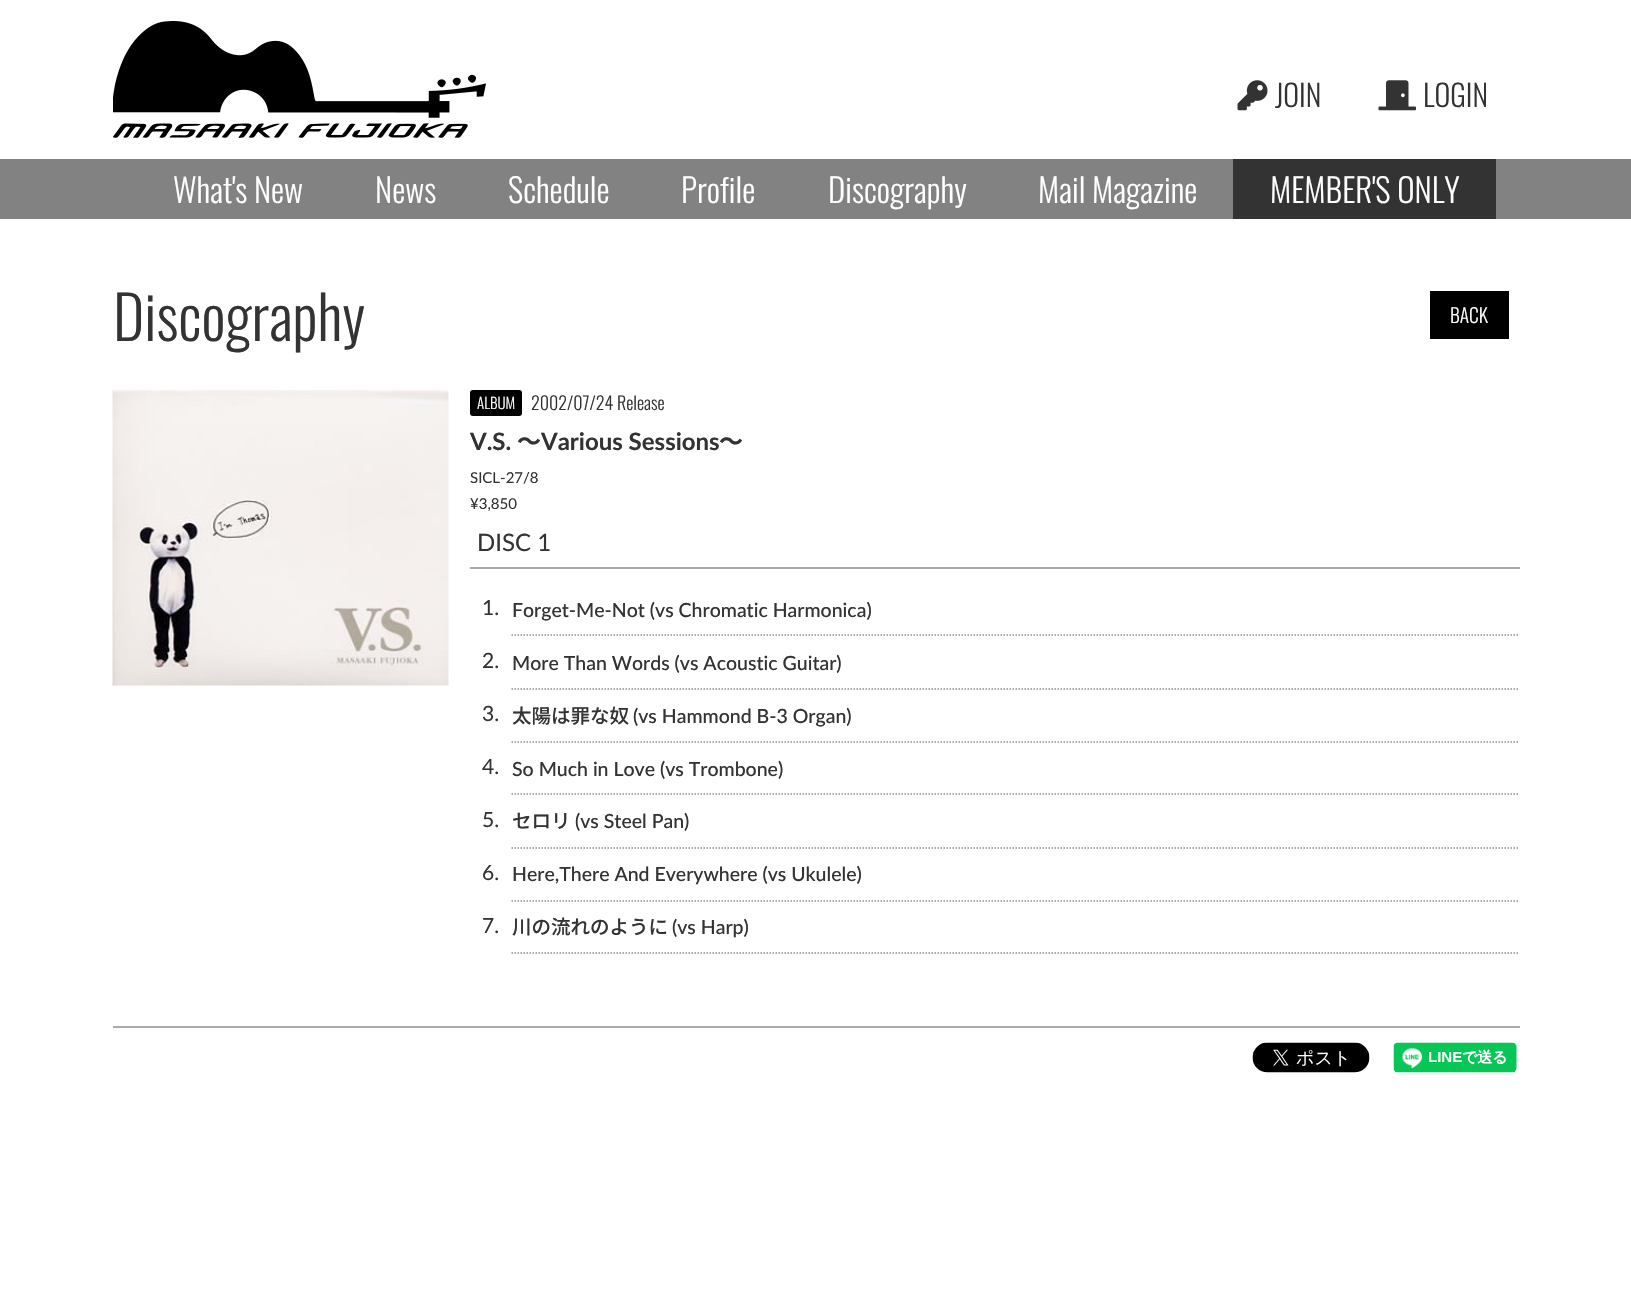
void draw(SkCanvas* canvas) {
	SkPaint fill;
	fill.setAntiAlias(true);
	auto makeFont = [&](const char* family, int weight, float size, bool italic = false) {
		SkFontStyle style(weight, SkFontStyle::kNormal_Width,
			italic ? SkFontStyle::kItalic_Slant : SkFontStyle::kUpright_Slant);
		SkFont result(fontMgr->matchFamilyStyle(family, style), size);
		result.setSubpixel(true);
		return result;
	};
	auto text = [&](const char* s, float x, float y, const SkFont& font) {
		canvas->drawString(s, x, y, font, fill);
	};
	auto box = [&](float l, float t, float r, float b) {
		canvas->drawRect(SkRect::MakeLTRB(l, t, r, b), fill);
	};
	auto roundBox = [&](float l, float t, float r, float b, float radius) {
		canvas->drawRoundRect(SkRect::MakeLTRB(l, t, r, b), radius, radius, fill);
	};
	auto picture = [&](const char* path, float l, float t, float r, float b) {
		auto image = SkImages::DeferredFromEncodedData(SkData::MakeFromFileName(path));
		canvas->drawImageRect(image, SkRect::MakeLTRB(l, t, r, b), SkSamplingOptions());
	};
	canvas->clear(0xFFFFFFFF);
	picture("image0.png", 113, 21, 486, 138);
	picture("image1.png", 1237, 80, 1268, 111);
	picture("image2.png", 1378, 80, 1416, 111);
	fill.setColor(0xFF828282);
	box(0, 159, 1631, 219);
	fill.setColor(0xFF333333);
	box(1233, 159, 1496, 219);
	fill.setColor(0xFF000000);
	box(1430, 291, 1509, 339);
	picture("image3.png", 112, 390, 449, 686);
	roundBox(470, 390, 522, 416, 3);
	fill.setColor(0xFFAAAAAA);
	box(470, 567, 1520, 569);
	fill.setStyle(SkPaint::kStroke_Style);
	fill.setStrokeWidth(1.5f);
	fill.setColor(0xFF909090);
	fill.setPathEffect(SkDashPathEffect::Make({{1.5f, 1.5f}}, 0));
	canvas->drawPath(SkPathBuilder().moveTo(511.5f, 635).lineTo(1519.5f, 635).detach(), fill);
	fill.setPathEffect(nullptr);
	fill.setPathEffect(SkDashPathEffect::Make({{1.5f, 1.5f}}, 0));
	canvas->drawPath(SkPathBuilder().moveTo(511.5f, 689).lineTo(1519.5f, 689).detach(), fill);
	fill.setPathEffect(nullptr);
	fill.setPathEffect(SkDashPathEffect::Make({{1.5f, 1.5f}}, 0));
	canvas->drawPath(SkPathBuilder().moveTo(511.5f, 742).lineTo(1519.5f, 742).detach(), fill);
	fill.setPathEffect(nullptr);
	fill.setPathEffect(SkDashPathEffect::Make({{1.5f, 1.5f}}, 0));
	canvas->drawPath(SkPathBuilder().moveTo(511.5f, 794).lineTo(1519.5f, 794).detach(), fill);
	fill.setPathEffect(nullptr);
	fill.setPathEffect(SkDashPathEffect::Make({{1.5f, 1.5f}}, 0));
	canvas->drawPath(SkPathBuilder().moveTo(511.5f, 848).lineTo(1519.5f, 848).detach(), fill);
	fill.setPathEffect(nullptr);
	fill.setPathEffect(SkDashPathEffect::Make({{1.5f, 1.5f}}, 0));
	canvas->drawPath(SkPathBuilder().moveTo(511.5f, 901).lineTo(1519.5f, 901).detach(), fill);
	fill.setPathEffect(nullptr);
	fill.setPathEffect(SkDashPathEffect::Make({{1.5f, 1.5f}}, 0));
	canvas->drawPath(SkPathBuilder().moveTo(511.5f, 953).lineTo(1519.5f, 953).detach(), fill);
	fill.setPathEffect(nullptr);
	fill.setStyle(SkPaint::kFill_Style);
	fill.setColor(0xFFAAAAAA);
	box(113, 1026, 1520, 1028);
	picture("image4.png", 1252, 1042, 1370, 1073);
	picture("image5.png", 1393, 1042, 1517, 1073);
	auto font1 = makeFont("Oswald", 300, 30);
	fill.setColor(0xFF333333);
	text("JOIN", 1275, 107, font1);
	text("LOGIN", 1423, 107, font1);
	auto font2 = makeFont("Oswald", 300, 33);
	fill.setColor(0xFFFFFFFF);
	text("What's New", 173, 203, font2);
	text("News", 375, 203, font2);
	text("Schedule", 508, 203, font2);
	text("Profile", 681, 203, font2);
	text("Discography", 828, 203, font2);
	text("Mail Magazine", 1038, 203, font2);
	text("MEMBER'S ONLY", 1270, 203, font2);
	auto font3 = makeFont("Oswald", 300, 60);
	fill.setColor(0xFF333333);
	text("Discography", 113, 341, font3);
	auto font4 = makeFont("Oswald", 300, 19.5f);
	fill.setColor(0xFFFFFFFF);
	text("BACK", 1450, 323, font4);
	auto font5 = makeFont("Oswald", 300, 15);
	text("ALBUM", 477, 409, font5);
	auto font6 = makeFont("Oswald", 300, 18);
	fill.setColor(0xFF333333);
	text("2002/07/24 Release", 531, 410, font6);
	auto font7 = makeFont("Lato", 700, 24);
	text("V.S.", 470, 450, font7);
	auto font8 = makeFont("Noto Sans JP", 700, 24);
	text("～", 517, 450, font8);
	text("Various Sessions", 541, 450, font7);
	text("～", 719, 450, font8);
	auto font9 = makeFont("Lato", 400, 15);
	text("SICL-27/8", 470, 483, font9);
	text("¥3,850", 470, 509, font9);
	auto font10 = makeFont("Lato", 400, 24);
	text("DISC 1", 477, 551, font10);
	auto font11 = makeFont("Lato", 400, 21);
	text("1.", 482, 615, font11);
	auto font12 = makeFont("Lato", 500, 19.5f);
	text("Forget-Me-Not (vs Chromatic Harmonica)", 512, 617, font12);
	text("2.", 482, 668, font11);
	text("More Than Words (vs Acoustic Guitar)", 512, 670, font12);
	text("3.", 482, 721, font11);
	auto font13 = makeFont("Noto Sans JP", 500, 19.5f);
	text("太陽は罪な奴", 512, 723, font13);
	text("(vs Hammond B-3 Organ)", 633, 723, font12);
	text("4.", 482, 774, font11);
	text("So Much in Love (vs Trombone)", 512, 776, font12);
	text("5.", 482, 827, font11);
	text("セロリ", 512, 828, font13);
	text("(vs Steel Pan)", 575, 828, font12);
	text("6.", 482, 880, font11);
	text("Here,There And Everywhere (vs Ukulele)", 512, 881, font12);
	text("7.", 482, 933, font11);
	text("川の流れのように", 512, 934, font13);
	text("(vs Harp)", 672, 934, font12);
}
